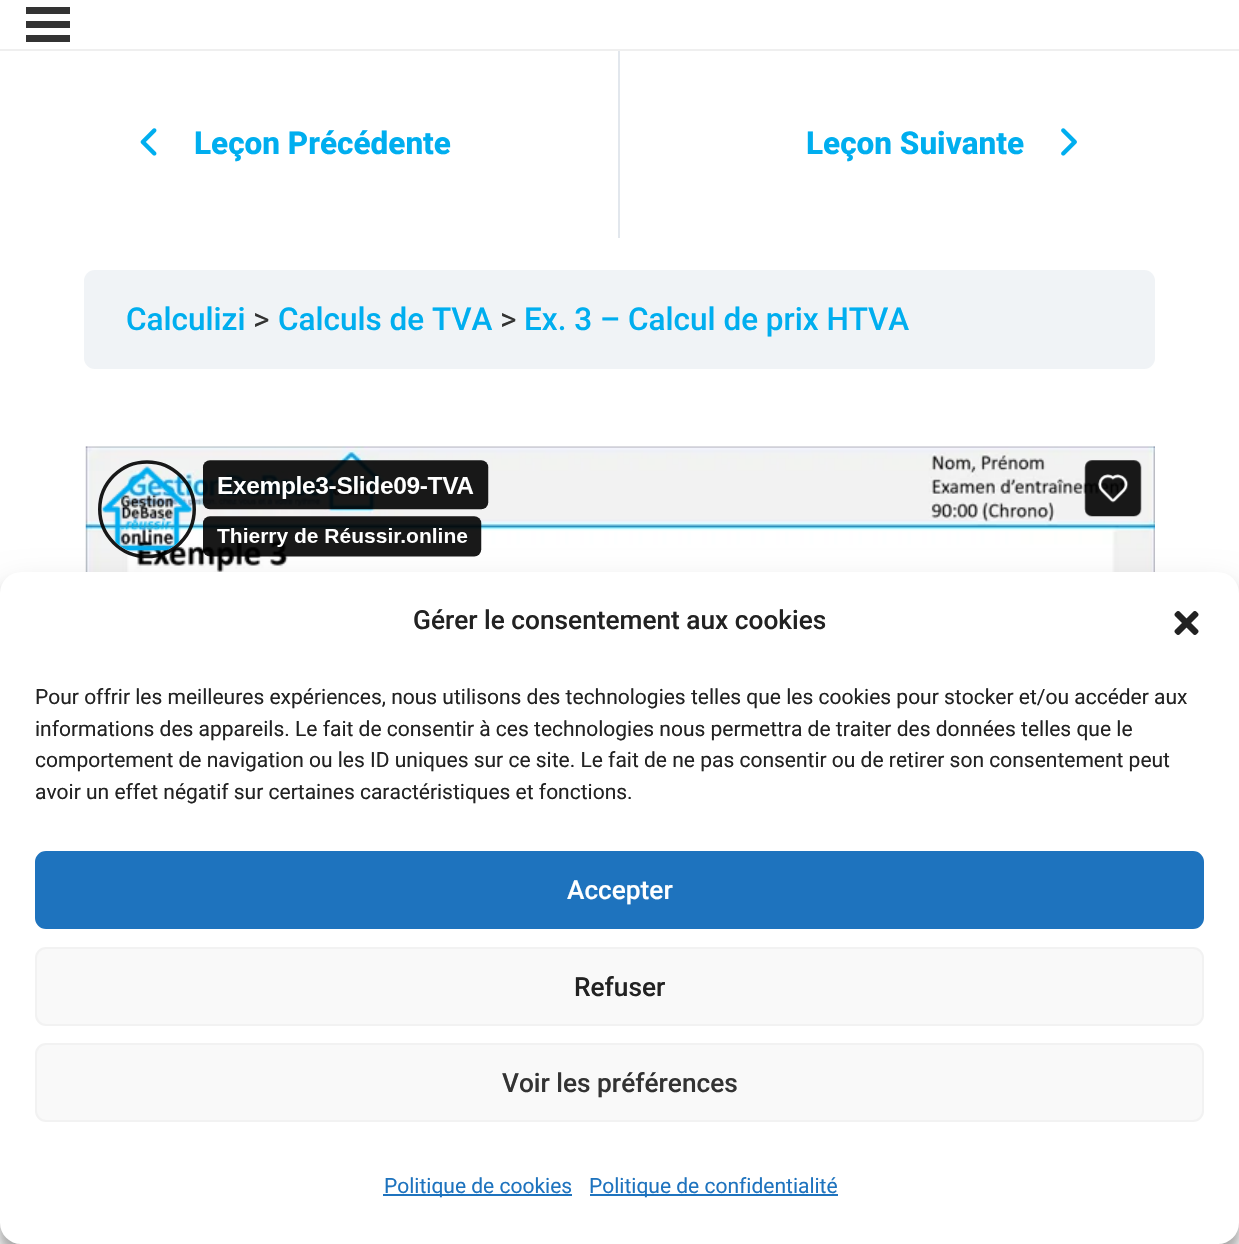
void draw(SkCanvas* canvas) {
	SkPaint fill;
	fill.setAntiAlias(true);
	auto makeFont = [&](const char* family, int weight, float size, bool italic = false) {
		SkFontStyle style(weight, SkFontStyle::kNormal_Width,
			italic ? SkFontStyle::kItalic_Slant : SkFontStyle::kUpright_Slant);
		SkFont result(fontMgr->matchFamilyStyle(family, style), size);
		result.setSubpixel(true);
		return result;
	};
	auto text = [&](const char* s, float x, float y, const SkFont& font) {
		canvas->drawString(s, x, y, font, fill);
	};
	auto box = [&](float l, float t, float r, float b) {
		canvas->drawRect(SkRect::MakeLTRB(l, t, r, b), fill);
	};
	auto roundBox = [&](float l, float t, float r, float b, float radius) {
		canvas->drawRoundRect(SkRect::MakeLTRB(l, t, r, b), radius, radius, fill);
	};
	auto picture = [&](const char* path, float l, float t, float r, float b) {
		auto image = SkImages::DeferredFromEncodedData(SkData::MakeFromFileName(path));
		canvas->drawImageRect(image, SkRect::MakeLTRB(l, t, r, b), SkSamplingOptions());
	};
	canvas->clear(0xFFFFFFFF);
	fill.setColor(0xFF333333);
	box(26, 7, 70, 14);
	box(26, 21, 70, 28);
	box(26, 35, 70, 42);
	fill.setColor(0xFFEFEFEF);
	box(0, 49, 1239, 51);
	fill.setColor(0xFFE2E7ED);
	box(618, 51, 620, 238);
	picture("image0.png", 140, 128, 157, 156);
	picture("image1.png", 1061, 128, 1077, 156);
	fill.setColor(0xFFF0F3F6);
	roundBox(84, 270, 1155, 369, 11);
	picture("image2.png", 85, 446, 1155, 572);
	fill.setColor(0x3B000000);
	fill.setMaskFilter(SkMaskFilter::MakeBlur(kNormal_SkBlurStyle, 5));
	canvas->drawRoundRect(SkRect::MakeLTRB(0, 583, 1239, 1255), 21, 21, fill);
	fill.setMaskFilter(nullptr);
	fill.setColor(0x30000000);
	fill.setMaskFilter(SkMaskFilter::MakeBlur(kNormal_SkBlurStyle, 17.5f));
	canvas->drawRoundRect(SkRect::MakeLTRB(0, 590, 1239, 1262), 21, 21, fill);
	fill.setMaskFilter(nullptr);
	fill.setColor(0xFF808080);
	fill.setMaskFilter(SkMaskFilter::MakeBlur(kNormal_SkBlurStyle, 4.5f));
	canvas->drawRoundRect(SkRect::MakeLTRB(1117, 1115, 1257, 1220), 4, 4, fill);
	fill.setMaskFilter(nullptr);
	fill.setColor(0xFFFFFFFF);
	roundBox(0, 572, 1239, 1244, 21);
	picture("image3.png", 1174, 611, 1199, 635);
	fill.setColor(0xFF1E73BE);
	canvas->drawRoundRect(SkRect::MakeLTRB(36, 852, 1203, 928), 10, 10, fill);
	fill.setStyle(SkPaint::kStroke_Style);
	fill.setStrokeWidth(2);
	canvas->drawRoundRect(SkRect::MakeLTRB(36, 852, 1203, 928), 10, 10, fill);
	fill.setStyle(SkPaint::kFill_Style);
	fill.setColor(0xFFF9F9F9);
	canvas->drawRoundRect(SkRect::MakeLTRB(36, 948, 1203, 1025), 10, 10, fill);
	fill.setStyle(SkPaint::kStroke_Style);
	fill.setColor(0xFFF2F2F2);
	canvas->drawRoundRect(SkRect::MakeLTRB(36, 948, 1203, 1025), 10, 10, fill);
	fill.setStyle(SkPaint::kFill_Style);
	fill.setColor(0xFFF9F9F9);
	canvas->drawRoundRect(SkRect::MakeLTRB(36, 1044, 1203, 1121), 10, 10, fill);
	fill.setStyle(SkPaint::kStroke_Style);
	fill.setColor(0xFFF2F2F2);
	canvas->drawRoundRect(SkRect::MakeLTRB(36, 1044, 1203, 1121), 10, 10, fill);
	fill.setStyle(SkPaint::kFill_Style);
	fill.setColor(0xFF1E73BE);
	box(383, 1194, 572, 1196);
	box(590, 1194, 838, 1196);
	auto font1 = makeFont("Roboto", 800, 31.5f);
	fill.setColor(0xFF00AEEF);
	text("Leçon Précédente", 194, 154, font1);
	text("Leçon Suivante", 806, 154, font1);
	auto font2 = makeFont("Roboto", 500, 31.5f);
	text("Calculizi", 126, 330, font2);
	auto font3 = makeFont("Roboto", 400, 31.5f);
	fill.setColor(0xFF333333);
	text(">", 253, 330, font3);
	fill.setColor(0xFF00AEEF);
	text("Calculs de TVA", 278, 330, font2);
	fill.setColor(0xFF333333);
	text(">", 500, 330, font3);
	fill.setColor(0xFF00AEEF);
	text("Ex. 3 – Calcul de prix HTVA", 524, 330, font2);
	auto font4 = makeFont("Roboto", 500, 26.25f);
	fill.setColor(0xFF222222);
	text("Gérer le consentement aux cookies", 413, 629, font4);
	auto font5 = makeFont("Roboto", 400, 21);
	text("Pour offrir les meilleures expériences, nous utilisons des technologies telles que les cookies pour stocker et/ou accéder aux", 35, 704, font5);
	text("informations des appareils. Le fait de consentir à ces technologies nous permettra de traiter des données telles que le", 35, 736, font5);
	text("comportement de navigation ou les ID uniques sur ce site. Le fait de ne pas consentir ou de retirer son consentement peut", 35, 767, font5);
	text("avoir un effet négatif sur certaines caractéristiques et fonctions.", 35, 799, font5);
	fill.setColor(0xFFFFFFFF);
	text("Accepter", 567, 899, font4);
	fill.setColor(0xFF222222);
	text("Refuser", 574, 996, font4);
	fill.setColor(0xFF333333);
	text("Voir les préférences", 502, 1092, font4);
	fill.setColor(0xFF1E73BE);
	text("Politique de cookies", 384, 1193, font5);
	text("Politique de confidentialité", 589, 1193, font5);
}
